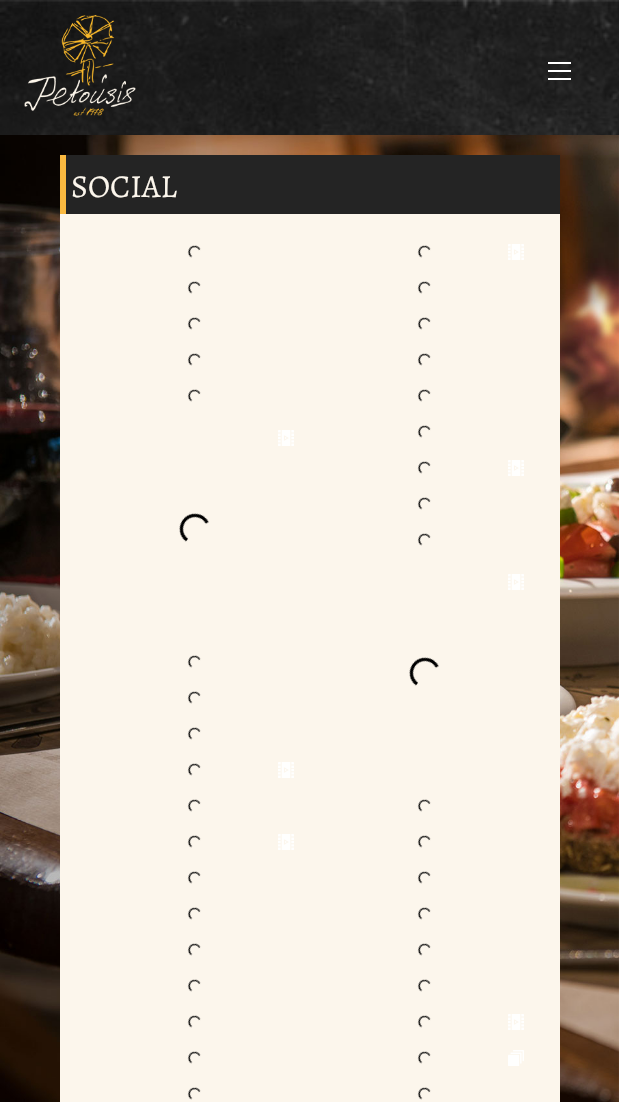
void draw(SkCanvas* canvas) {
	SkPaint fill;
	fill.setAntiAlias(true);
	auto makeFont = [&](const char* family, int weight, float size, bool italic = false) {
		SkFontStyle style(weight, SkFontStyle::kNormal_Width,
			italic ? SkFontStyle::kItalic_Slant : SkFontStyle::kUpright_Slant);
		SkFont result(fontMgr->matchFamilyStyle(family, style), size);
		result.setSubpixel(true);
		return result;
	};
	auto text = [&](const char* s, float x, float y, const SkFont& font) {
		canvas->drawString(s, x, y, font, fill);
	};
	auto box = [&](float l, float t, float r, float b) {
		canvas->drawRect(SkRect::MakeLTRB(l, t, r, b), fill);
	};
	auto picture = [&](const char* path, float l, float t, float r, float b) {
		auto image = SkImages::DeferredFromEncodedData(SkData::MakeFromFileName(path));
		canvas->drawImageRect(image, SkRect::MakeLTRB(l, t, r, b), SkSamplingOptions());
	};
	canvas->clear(0xFFFFFFFF);
	picture("image0.png", 0, 0, 619, 135);
	picture("image1.png", 24, 15, 136, 116);
	fill.setColor(0xFFFFFFFF);
	box(548, 70, 571, 72);
	box(548, 62, 571, 64);
	box(548, 78, 571, 80);
	picture("image2.png", 0, 135, 619, 1102);
	fill.setColor(0xFF242424);
	box(66, 155, 560, 214);
	fill.setColor(0xFFFAB940);
	box(60, 155, 66, 214);
	fill.setColor(0xFFFCF6EC);
	box(60, 214, 560, 1102);
	picture("image3.png", 179, 244, 524, 1100);
	auto font1 = makeFont("Alegreya SC", 400, 32);
	text("SOCIAL", 71, 197, font1);
}
